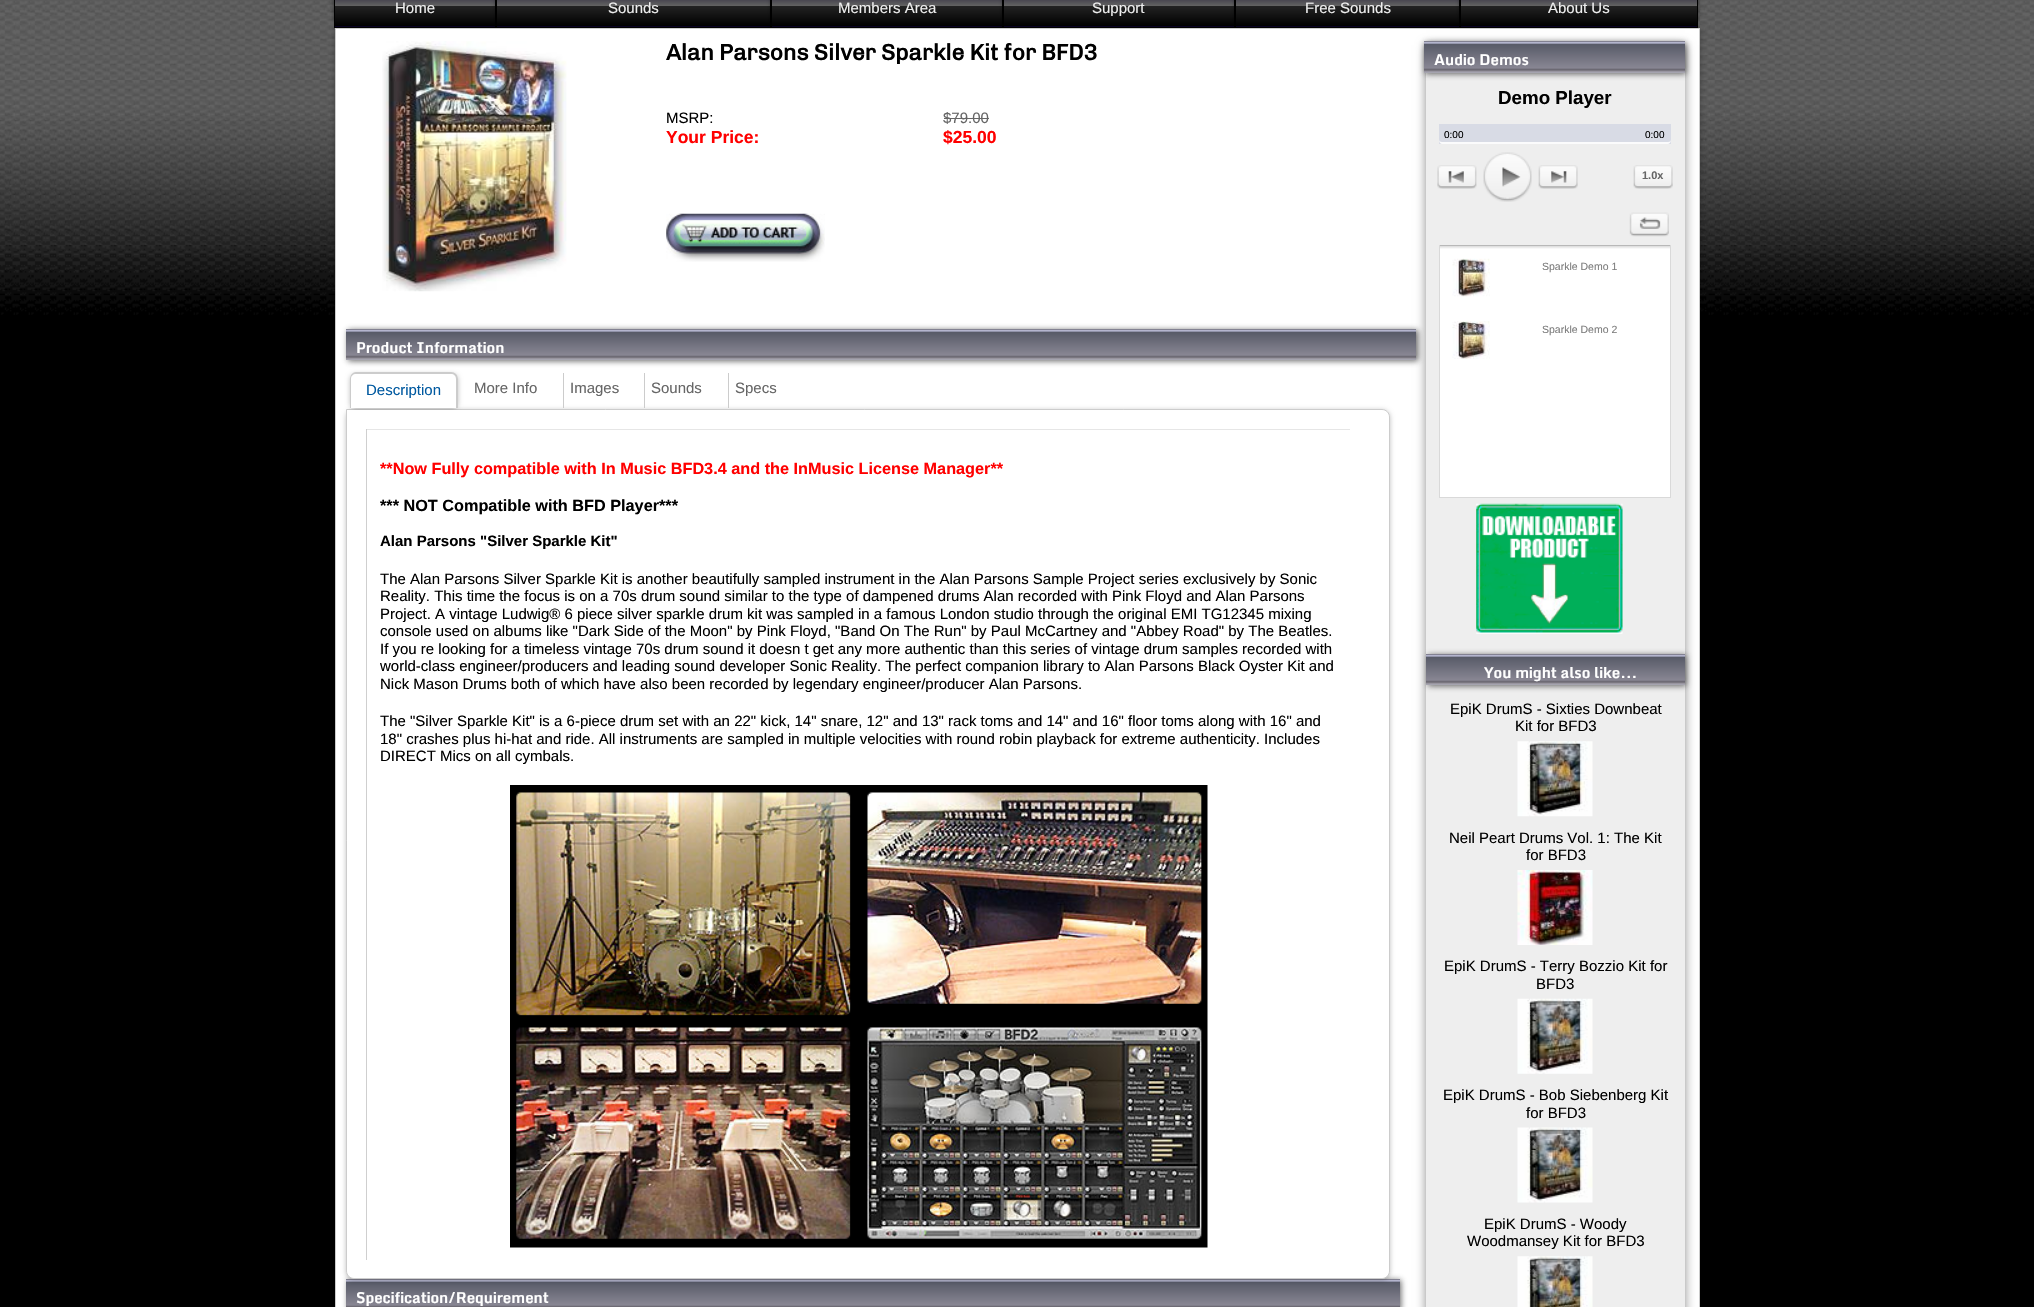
void draw(SkCanvas* canvas) {
	SkPaint fill;
	fill.setAntiAlias(true);
	auto makeFont = [&](const char* family, int weight, float size, bool italic = false) {
		SkFontStyle style(weight, SkFontStyle::kNormal_Width,
			italic ? SkFontStyle::kItalic_Slant : SkFontStyle::kUpright_Slant);
		SkFont result(fontMgr->matchFamilyStyle(family, style), size);
		result.setSubpixel(true);
		return result;
	};
	auto text = [&](const char* s, float x, float y, const SkFont& font) {
		canvas->drawString(s, x, y, font, fill);
	};
	auto box = [&](float l, float t, float r, float b) {
		canvas->drawRect(SkRect::MakeLTRB(l, t, r, b), fill);
	};
	auto picture = [&](const char* path, float l, float t, float r, float b) {
		auto image = SkImages::DeferredFromEncodedData(SkData::MakeFromFileName(path));
		canvas->drawImageRect(image, SkRect::MakeLTRB(l, t, r, b), SkSamplingOptions());
	};
	canvas->clear(0xFF000000);
	picture("image0.png", 0, 0, 2034, 315);
	fill.setColor(0x80000000);
	fill.setMaskFilter(SkMaskFilter::MakeBlur(kNormal_SkBlurStyle, 2));
	canvas->drawRoundRect(SkRect::MakeLTRB(334, -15, 496, 29), 13, 13, fill);
	fill.setMaskFilter(nullptr);
	{
		const SkColor colors[] = {0xFF080024, 0xFF616161, 0xFF242424, 0xFF000000};
		const float stops[] = {0, 0.5f, 0.5f, 1};
		const SkPoint ends[] = {{335, -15}, {335, 26}};
		fill.setShader(SkGradientShader::MakeLinear(ends, colors, stops, 4, SkTileMode::kClamp));
		fill.setAlpha(255);
	}
	box(335, 0, 495, 26);
	{
		const SkColor colors[] = {0xFF080024, 0xFF616161, 0xFF242424, 0xFF000000};
		const float stops[] = {0, 0.5f, 0.5f, 1};
		const SkPoint ends[] = {{335, 26}, {335, 68}};
		fill.setShader(SkGradientShader::MakeLinear(ends, colors, stops, 4, SkTileMode::kClamp));
		fill.setAlpha(255);
	}
	box(334, 26, 496, 27);
	fill.setStyle(SkPaint::kStroke_Style);
	fill.setStrokeWidth(1);
	fill.setShader(nullptr);
	fill.setColor(0xFF000000);
	canvas->drawRect(SkRect::MakeLTRB(334.5f, -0.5f, 495.5f, 27.5f), fill);
	fill.setStyle(SkPaint::kFill_Style);
	fill.setColor(0x80000000);
	fill.setMaskFilter(SkMaskFilter::MakeBlur(kNormal_SkBlurStyle, 2));
	canvas->drawRect(SkRect::MakeLTRB(496, -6, 771, 29), fill);
	fill.setMaskFilter(nullptr);
	{
		const SkColor colors[] = {0xFF080024, 0xFF616161, 0xFF242424, 0xFF000000};
		const float stops[] = {0, 0.5f, 0.5f, 1};
		const SkPoint ends[] = {{498, -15}, {498, 26}};
		fill.setShader(SkGradientShader::MakeLinear(ends, colors, stops, 4, SkTileMode::kClamp));
		fill.setAlpha(255);
	}
	box(497, 0, 770, 26);
	{
		const SkColor colors[] = {0xFF080024, 0xFF616161, 0xFF242424, 0xFF000000};
		const float stops[] = {0, 0.5f, 0.5f, 1};
		const SkPoint ends[] = {{498, 26}, {498, 68}};
		fill.setShader(SkGradientShader::MakeLinear(ends, colors, stops, 4, SkTileMode::kClamp));
		fill.setAlpha(255);
	}
	box(496, 26, 771, 27);
	fill.setStyle(SkPaint::kStroke_Style);
	fill.setShader(nullptr);
	fill.setColor(0xFF000000);
	canvas->drawRect(SkRect::MakeLTRB(496.5f, -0.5f, 770.5f, 27.5f), fill);
	fill.setStyle(SkPaint::kFill_Style);
	fill.setColor(0x80000000);
	fill.setMaskFilter(SkMaskFilter::MakeBlur(kNormal_SkBlurStyle, 2));
	canvas->drawRect(SkRect::MakeLTRB(771, -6, 1003, 29), fill);
	fill.setMaskFilter(nullptr);
	{
		const SkColor colors[] = {0xFF080024, 0xFF616161, 0xFF242424, 0xFF000000};
		const float stops[] = {0, 0.5f, 0.5f, 1};
		const SkPoint ends[] = {{773, -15}, {773, 26}};
		fill.setShader(SkGradientShader::MakeLinear(ends, colors, stops, 4, SkTileMode::kClamp));
		fill.setAlpha(255);
	}
	box(772, 0, 1002, 26);
	{
		const SkColor colors[] = {0xFF080024, 0xFF616161, 0xFF242424, 0xFF000000};
		const float stops[] = {0, 0.5f, 0.5f, 1};
		const SkPoint ends[] = {{773, 26}, {773, 68}};
		fill.setShader(SkGradientShader::MakeLinear(ends, colors, stops, 4, SkTileMode::kClamp));
		fill.setAlpha(255);
	}
	box(771, 26, 1003, 27);
	fill.setStyle(SkPaint::kStroke_Style);
	fill.setShader(nullptr);
	fill.setColor(0xFF000000);
	canvas->drawRect(SkRect::MakeLTRB(771.5f, -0.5f, 1002.5f, 27.5f), fill);
	fill.setStyle(SkPaint::kFill_Style);
	fill.setColor(0x80000000);
	fill.setMaskFilter(SkMaskFilter::MakeBlur(kNormal_SkBlurStyle, 2));
	canvas->drawRect(SkRect::MakeLTRB(1003, -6, 1235, 29), fill);
	fill.setMaskFilter(nullptr);
	{
		const SkColor colors[] = {0xFF080024, 0xFF616161, 0xFF242424, 0xFF000000};
		const float stops[] = {0, 0.5f, 0.5f, 1};
		const SkPoint ends[] = {{1004, -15}, {1004, 26}};
		fill.setShader(SkGradientShader::MakeLinear(ends, colors, stops, 4, SkTileMode::kClamp));
		fill.setAlpha(255);
	}
	box(1004, 0, 1234, 26);
	{
		const SkColor colors[] = {0xFF080024, 0xFF616161, 0xFF242424, 0xFF000000};
		const float stops[] = {0, 0.5f, 0.5f, 1};
		const SkPoint ends[] = {{1004, 26}, {1004, 68}};
		fill.setShader(SkGradientShader::MakeLinear(ends, colors, stops, 4, SkTileMode::kClamp));
		fill.setAlpha(255);
	}
	box(1003, 26, 1235, 27);
	fill.setStyle(SkPaint::kStroke_Style);
	fill.setShader(nullptr);
	fill.setColor(0xFF000000);
	canvas->drawRect(SkRect::MakeLTRB(1003.5f, -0.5f, 1234.5f, 27.5f), fill);
	fill.setStyle(SkPaint::kFill_Style);
	fill.setColor(0x80000000);
	fill.setMaskFilter(SkMaskFilter::MakeBlur(kNormal_SkBlurStyle, 2));
	canvas->drawRect(SkRect::MakeLTRB(1235, -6, 1460, 29), fill);
	fill.setMaskFilter(nullptr);
	{
		const SkColor colors[] = {0xFF080024, 0xFF616161, 0xFF242424, 0xFF000000};
		const float stops[] = {0, 0.5f, 0.5f, 1};
		const SkPoint ends[] = {{1236, -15}, {1236, 26}};
		fill.setShader(SkGradientShader::MakeLinear(ends, colors, stops, 4, SkTileMode::kClamp));
		fill.setAlpha(255);
	}
	box(1236, 0, 1459, 26);
	{
		const SkColor colors[] = {0xFF080024, 0xFF616161, 0xFF242424, 0xFF000000};
		const float stops[] = {0, 0.5f, 0.5f, 1};
		const SkPoint ends[] = {{1236, 26}, {1236, 68}};
		fill.setShader(SkGradientShader::MakeLinear(ends, colors, stops, 4, SkTileMode::kClamp));
		fill.setAlpha(255);
	}
	box(1235, 26, 1460, 27);
	fill.setStyle(SkPaint::kStroke_Style);
	fill.setShader(nullptr);
	fill.setColor(0xFF000000);
	canvas->drawRect(SkRect::MakeLTRB(1235.5f, -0.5f, 1459.5f, 27.5f), fill);
	fill.setStyle(SkPaint::kFill_Style);
	fill.setColor(0x80000000);
	fill.setMaskFilter(SkMaskFilter::MakeBlur(kNormal_SkBlurStyle, 2));
	canvas->drawRoundRect(SkRect::MakeLTRB(1460, -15, 1698, 29), 13, 13, fill);
	fill.setMaskFilter(nullptr);
	{
		const SkColor colors[] = {0xFF080024, 0xFF616161, 0xFF242424, 0xFF000000};
		const float stops[] = {0, 0.5f, 0.5f, 1};
		const SkPoint ends[] = {{1461, -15}, {1461, 26}};
		fill.setShader(SkGradientShader::MakeLinear(ends, colors, stops, 4, SkTileMode::kClamp));
		fill.setAlpha(255);
	}
	box(1461, 0, 1697, 26);
	{
		const SkColor colors[] = {0xFF080024, 0xFF616161, 0xFF242424, 0xFF000000};
		const float stops[] = {0, 0.5f, 0.5f, 1};
		const SkPoint ends[] = {{1461, 26}, {1461, 68}};
		fill.setShader(SkGradientShader::MakeLinear(ends, colors, stops, 4, SkTileMode::kClamp));
		fill.setAlpha(255);
	}
	box(1460, 26, 1698, 27);
	fill.setStyle(SkPaint::kStroke_Style);
	fill.setShader(nullptr);
	fill.setColor(0xFF000000);
	canvas->drawRect(SkRect::MakeLTRB(1460.5f, -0.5f, 1697.5f, 27.5f), fill);
	fill.setStyle(SkPaint::kFill_Style);
	fill.setColor(0x4D000000);
	fill.setMaskFilter(SkMaskFilter::MakeBlur(kNormal_SkBlurStyle, 3));
	canvas->drawRect(SkRect::MakeLTRB(335, 29, 1700, 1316), fill);
	fill.setMaskFilter(nullptr);
	fill.setColor(0xFFFFFFFF);
	canvas->drawRect(SkRect::MakeLTRB(335.5f, 28.5f, 1699.5f, 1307.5f), fill);
	fill.setStyle(SkPaint::kStroke_Style);
	fill.setColor(0xFFCCCCCC);
	canvas->drawRect(SkRect::MakeLTRB(335.5f, 28.5f, 1699.5f, 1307.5f), fill);
	picture("image1.png", 382, 41, 567, 292);
	fill.setStyle(SkPaint::kFill_Style);
	fill.setColor(0xFF666666);
	box(944, 118, 989, 119);
	picture("image2.png", 666, 213, 825, 262);
	fill.setColor(0xBF323232);
	fill.setMaskFilter(SkMaskFilter::MakeBlur(kNormal_SkBlurStyle, 3));
	canvas->drawRect(SkRect::MakeLTRB(348, 330, 1418, 361), fill);
	fill.setMaskFilter(nullptr);
	{
		const SkColor colors[] = {0xFF65626D, 0xFFB0B2C9, 0xFFB9BAD6, 0xFF585B68, 0xFF888693, 0xFF67646D, 0xFF97949E, 0xFFABABB7};
		const float stops[] = {0, 0.04f, 0.06f, 0.11f, 0.84f, 0.9f, 0.95f, 1};
		const SkPoint ends[] = {{881, 329}, {881, 360}};
		fill.setShader(SkGradientShader::MakeLinear(ends, colors, stops, 8, SkTileMode::kClamp));
		fill.setAlpha(255);
	}
	box(346, 329, 1416, 360);
	fill.setShader(nullptr);
	fill.setColor(0xBF323232);
	fill.setMaskFilter(SkMaskFilter::MakeBlur(kNormal_SkBlurStyle, 3));
	canvas->drawRect(SkRect::MakeLTRB(348, 1280, 1401, 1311), fill);
	fill.setMaskFilter(nullptr);
	{
		const SkColor colors[] = {0xFF65626D, 0xFFB0B2C9, 0xFFB9BAD6, 0xFF585B68, 0xFF888693, 0xFF67646D, 0xFF97949E, 0xFFABABB7};
		const float stops[] = {0, 0.04f, 0.06f, 0.11f, 0.84f, 0.9f, 0.95f, 1};
		const SkPoint ends[] = {{873, 1279}, {873, 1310}};
		fill.setShader(SkGradientShader::MakeLinear(ends, colors, stops, 8, SkTileMode::kClamp));
		fill.setAlpha(255);
	}
	box(346, 1279, 1400, 1307);
	fill.setShader(nullptr);
	fill.setColor(0x40000000);
	fill.setMaskFilter(SkMaskFilter::MakeBlur(kNormal_SkBlurStyle, 2.5f));
	canvas->drawRoundRect(SkRect::MakeLTRB(346, 410, 1390, 1280), 8, 8, fill);
	fill.setMaskFilter(nullptr);
	fill.setColor(0xFFFFFFFF);
	canvas->drawPath(SkPathBuilder().moveTo(346.5f, 409.5f).lineTo(1382, 409.5f).cubicTo(1386, 409.5f, 1389.5f, 413, 1389.5f, 417).lineTo(1389.5f, 1271).cubicTo(1389.5f, 1275, 1386, 1278.5f, 1382, 1278.5f).lineTo(354, 1278.5f).cubicTo(350, 1278.5f, 346.5f, 1275, 346.5f, 1271).close().detach(), fill);
	fill.setStyle(SkPaint::kStroke_Style);
	fill.setColor(0xFFCCCCCC);
	canvas->drawPath(SkPathBuilder().moveTo(346.5f, 409.5f).lineTo(1382, 409.5f).cubicTo(1386, 409.5f, 1389.5f, 413, 1389.5f, 417).lineTo(1389.5f, 1271).cubicTo(1389.5f, 1275, 1386, 1278.5f, 1382, 1278.5f).lineTo(354, 1278.5f).cubicTo(350, 1278.5f, 346.5f, 1275, 346.5f, 1271).close().detach(), fill);
	canvas->save();
	canvas->clipRect(SkRect::MakeLTRB(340, 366, 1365, 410));
	fill.setStyle(SkPaint::kFill_Style);
	fill.setColor(0x40000000);
	fill.setMaskFilter(SkMaskFilter::MakeBlur(kNormal_SkBlurStyle, 2.5f));
	canvas->drawRoundRect(SkRect::MakeLTRB(350, 374, 458, 409), 6, 6, fill);
	fill.setMaskFilter(nullptr);
	canvas->restore();
	fill.setColor(0xFFFFFFFF);
	canvas->drawPath(SkPathBuilder().moveTo(356, 373).lineTo(452, 373).cubicTo(455.5f, 373, 458, 375.5f, 458, 379).lineTo(458, 408).lineTo(350, 408).lineTo(350, 379).cubicTo(350, 375.5f, 352.5f, 373, 356, 373).close().detach(), fill);
	fill.setColor(0xFFCCCCCC);
	canvas->drawPath(SkPathBuilder(SkPathFillType::kEvenOdd).moveTo(356, 372).lineTo(451, 372).cubicTo(455, 372, 458, 375, 458, 379).lineTo(458, 408).lineTo(350, 408).lineTo(350, 379).cubicTo(350, 375, 353, 372, 356, 372).close().moveTo(356, 374).lineTo(451, 374).cubicTo(454, 374, 456, 376, 456, 379).lineTo(456, 408).lineTo(351, 408).lineTo(351, 379).cubicTo(351, 376, 353, 374, 356, 374).close().detach(), fill);
	box(563, 373, 564, 408);
	box(644, 373, 645, 408);
	box(728, 373, 729, 408);
	fill.setColor(0xFFE6E6E6);
	box(366, 429, 1350, 430);
	fill.setColor(0xFFCFCFCF);
	box(366, 429, 367, 1260);
	picture("image3.png", 510, 785, 1208, 1248);
	fill.setColor(0x73000000);
	fill.setMaskFilter(SkMaskFilter::MakeBlur(kNormal_SkBlurStyle, 5));
	canvas->drawRect(SkRect::MakeLTRB(1426, 45, 1685, 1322), fill);
	fill.setMaskFilter(nullptr);
	fill.setColor(0xFFEEEEEE);
	box(1426, 73, 1685, 1307);
	fill.setColor(0xBF323232);
	fill.setMaskFilter(SkMaskFilter::MakeBlur(kNormal_SkBlurStyle, 3));
	canvas->drawRect(SkRect::MakeLTRB(1425, 43, 1686, 74), fill);
	fill.setMaskFilter(nullptr);
	{
		const SkColor colors[] = {0xFF65626D, 0xFFB0B2C9, 0xFFB9BAD6, 0xFF585B68, 0xFF888693, 0xFF67646D, 0xFF97949E, 0xFFABABB7};
		const float stops[] = {0, 0.04f, 0.06f, 0.11f, 0.84f, 0.9f, 0.95f, 1};
		const SkPoint ends[] = {{1554, 41}, {1554, 73}};
		fill.setShader(SkGradientShader::MakeLinear(ends, colors, stops, 8, SkTileMode::kClamp));
		fill.setAlpha(255);
	}
	box(1424, 41, 1685, 73);
	fill.setShader(nullptr);
	fill.setColor(0xFFD8DBE5);
	box(1439, 124, 1671, 144);
	fill.setColor(0xFFFBFBFC);
	canvas->drawPath(SkPathBuilder().moveTo(1439, 139).cubicTo(1439, 142, 1440, 144, 1443, 144).lineTo(1667, 144).cubicTo(1670, 144, 1671, 142, 1671, 139).cubicTo(1671, 141, 1670, 142, 1668, 142).lineTo(1442, 142).cubicTo(1440, 142, 1439, 141, 1439, 139).close().detach(), fill);
	picture("image4.png", 1437, 165, 1477, 189);
	picture("image5.png", 1483, 152, 1532, 202);
	picture("image6.png", 1538, 165, 1578, 189);
	picture("image7.png", 1633, 165, 1673, 189);
	picture("image8.png", 1629, 212, 1669, 237);
	fill.setColor(0xFFFFFFFF);
	canvas->drawRect(SkRect::MakeLTRB(1439.5f, 245.5f, 1670.5f, 497.5f), fill);
	fill.setStyle(SkPaint::kStroke_Style);
	fill.setColor(0xFFD9D9D9);
	canvas->drawRect(SkRect::MakeLTRB(1439.5f, 245.5f, 1670.5f, 497.5f), fill);
	picture("image9.png", 1440, 245, 1670, 249);
	picture("image10.png", 1452, 258, 1490, 297);
	picture("image11.png", 1452, 321, 1490, 359);
	picture("image12.png", 1476, 503, 1623, 634);
	fill.setStyle(SkPaint::kFill_Style);
	fill.setColor(0xBF323232);
	fill.setMaskFilter(SkMaskFilter::MakeBlur(kNormal_SkBlurStyle, 3));
	canvas->drawRect(SkRect::MakeLTRB(1428, 655, 1686, 686), fill);
	fill.setMaskFilter(nullptr);
	{
		const SkColor colors[] = {0xFF65626D, 0xFFB0B2C9, 0xFFB9BAD6, 0xFF585B68, 0xFF888693, 0xFF67646D, 0xFF97949E, 0xFFABABB7};
		const float stops[] = {0, 0.04f, 0.06f, 0.11f, 0.84f, 0.9f, 0.95f, 1};
		const SkPoint ends[] = {{1556, 654}, {1556, 685}};
		fill.setShader(SkGradientShader::MakeLinear(ends, colors, stops, 8, SkTileMode::kClamp));
		fill.setAlpha(255);
	}
	box(1426, 654, 1685, 685);
	picture("image13.png", 1517, 741, 1593, 817);
	picture("image14.png", 1517, 870, 1593, 945);
	picture("image15.png", 1517, 998, 1593, 1074);
	picture("image16.png", 1517, 1127, 1593, 1203);
	picture("image17.png", 1517, 1256, 1593, 1307);
	auto font1 = makeFont("Liberation Sans", 400, 15);
	fill.setShader(nullptr);
	fill.setColor(0xFFEEEEEE);
	text("Home", 395, 13, font1);
	text("Sounds", 608, 13, font1);
	text("Members Area", 838, 13, font1);
	text("Support", 1092, 13, font1);
	text("Free Sounds", 1305, 13, font1);
	text("About Us", 1548, 13, font1);
	auto font2 = makeFont("Chivo", 700, 22.5f);
	fill.setColor(0xFF000000);
	text("Alan Parsons Silver Sparkle Kit for BFD3", 666, 60, font2);
	text("MSRP:", 666, 123, font1);
	fill.setColor(0xFF666666);
	text("$79.00", 943, 123, font1);
	auto font3 = makeFont("Liberation Sans", 700, 17.5f);
	fill.setColor(0xFFFF0000);
	text("Your Price:", 666, 143, font3);
	text("$25.00", 943, 143, font3);
	auto font4 = makeFont("Monda", 700, 15);
	fill.setColor(0xFFFFFFFF);
	text("Product Information", 356, 353, font4);
	fill.setColor(0xFF0059A0);
	text("Description", 366, 395, font1);
	fill.setColor(0xFF666666);
	text("More Info", 474, 393, font1);
	text("Images", 570, 393, font1);
	text("Sounds", 651, 393, font1);
	text("Specs", 735, 393, font1);
	auto font5 = makeFont("Liberation Sans", 700, 16.25f);
	fill.setColor(0xFFFF0000);
	text("**Now Fully compatible with In Music BFD3.4 and the InMusic License Manager**", 380, 474, font5);
	fill.setColor(0xFF000000);
	text("*** NOT Compatible with BFD Player***", 380, 511, font5);
	auto font6 = makeFont("Liberation Sans", 700, 15);
	text("Alan Parsons \"Silver Sparkle Kit\"", 380, 546, font6);
	text("The Alan Parsons Silver Sparkle Kit is another beautifully sampled instrument in the Alan Parsons Sample Project series exclusively by Sonic", 380, 584, font1);
	text("Reality. This time the focus is on a 70s drum sound similar to the type of dampened drums Alan recorded with Pink Floyd and Alan Parsons", 380, 601, font1);
	text("Project. A vintage Ludwig® 6 piece silver sparkle drum kit was sampled in a famous London studio through the original EMI TG12345 mixing", 380, 619, font1);
	text("console used on albums like \"Dark Side of the Moon\" by Pink Floyd, \"Band On The Run\" by Paul McCartney and \"Abbey Road\" by The Beatles.", 380, 636, font1);
	text("If you re looking for a timeless vintage 70s drum sound it doesn t get any more authentic than this series of vintage drum samples recorded with", 380, 654, font1);
	text("world-class engineer/producers and leading sound developer Sonic Reality. The perfect companion library to Alan Parsons Black Oyster Kit and", 380, 671, font1);
	text("Nick Mason Drums both of which have also been recorded by legendary engineer/producer Alan Parsons.", 380, 689, font1);
	text("The \"Silver Sparkle Kit\" is a 6-piece drum set with an 22\" kick, 14\" snare, 12\" and 13\" rack toms and 14\" and 16\" floor toms along with 16\" and", 380, 726, font1);
	text("18\" crashes plus hi-hat and ride. All instruments are sampled in multiple velocities with round robin playback for extreme authenticity. Includes", 380, 744, font1);
	text("DIRECT Mics on all cymbals.", 380, 761, font1);
	fill.setColor(0xFFFFFFFF);
	text("Specification/Requirement", 356, 1303, font4);
	text("Audio Demos", 1434, 65, font4);
	auto font7 = makeFont("Liberation Sans", 700, 18.75f);
	fill.setColor(0xFF000000);
	text("Demo Player", 1498, 104, font7);
	auto font8 = makeFont("Liberation Sans", 400, 10);
	text("0:00", 1444, 138, font8);
	text("0:00", 1645, 138, font8);
	auto font9 = makeFont("Liberation Sans", 700, 11);
	fill.setColor(0xFF666666);
	text("1.0x", 1642, 179, font9);
	auto font10 = makeFont("Liberation Sans", 400, 10.5f);
	fill.setColor(0xFF7C7C7C);
	text("Sparkle Demo 1", 1542, 270, font10);
	text("Sparkle Demo 2", 1542, 333, font10);
	fill.setColor(0xFFFFFFFF);
	text("You might also like...", 1484, 678, font4);
	fill.setColor(0xFF000000);
	text("EpiK DrumS - Sixties Downbeat", 1450, 714, font1);
	text("Kit for BFD3", 1515, 731, font1);
	text("Neil Peart Drums Vol. 1: The Kit", 1449, 843, font1);
	text("for BFD3", 1526, 860, font1);
	text("EpiK DrumS - Terry Bozzio Kit for", 1444, 971, font1);
	text("BFD3", 1536, 989, font1);
	text("EpiK DrumS - Bob Siebenberg Kit", 1443, 1100, font1);
	text("for BFD3", 1526, 1118, font1);
	text("EpiK DrumS - Woody", 1484, 1229, font1);
	text("Woodmansey Kit for BFD3", 1467, 1246, font1);
}
